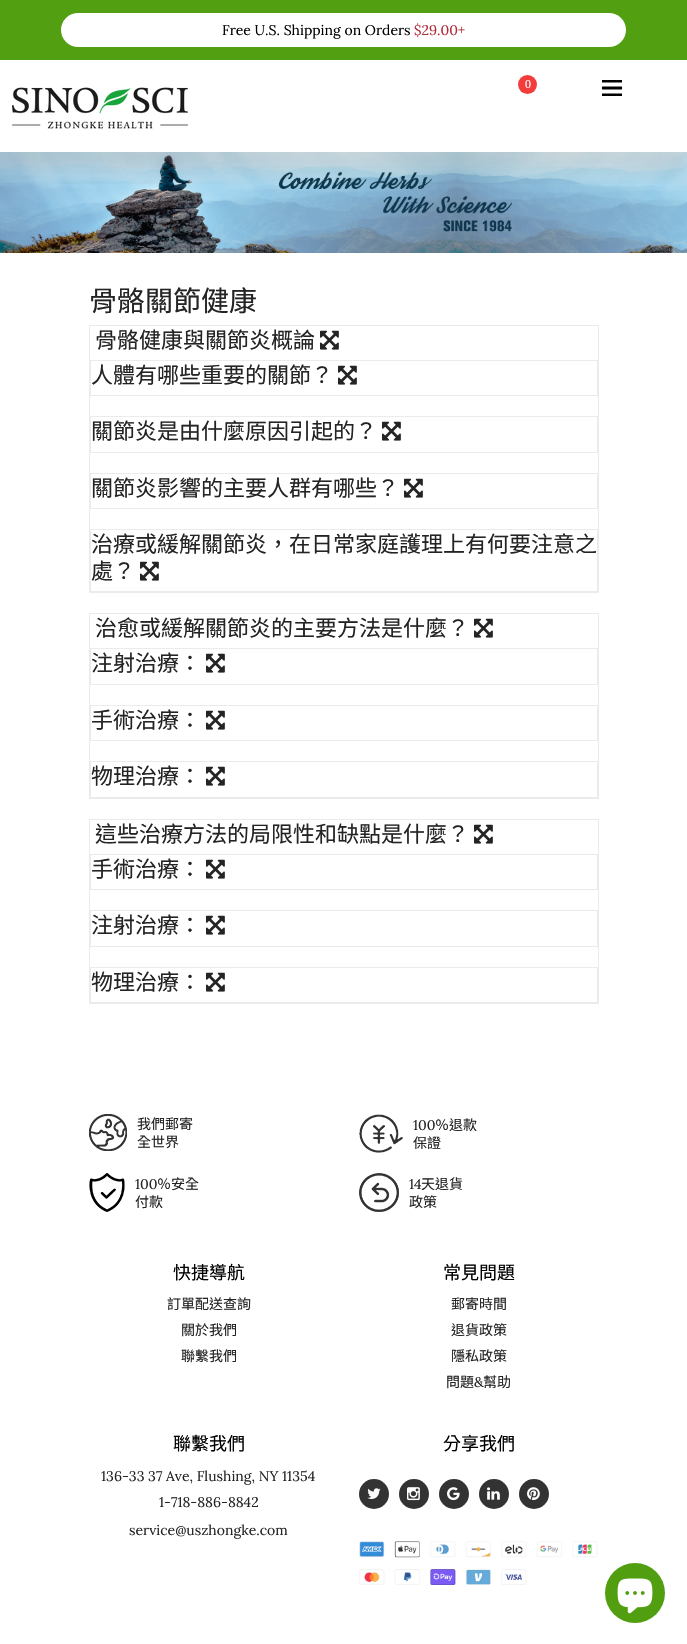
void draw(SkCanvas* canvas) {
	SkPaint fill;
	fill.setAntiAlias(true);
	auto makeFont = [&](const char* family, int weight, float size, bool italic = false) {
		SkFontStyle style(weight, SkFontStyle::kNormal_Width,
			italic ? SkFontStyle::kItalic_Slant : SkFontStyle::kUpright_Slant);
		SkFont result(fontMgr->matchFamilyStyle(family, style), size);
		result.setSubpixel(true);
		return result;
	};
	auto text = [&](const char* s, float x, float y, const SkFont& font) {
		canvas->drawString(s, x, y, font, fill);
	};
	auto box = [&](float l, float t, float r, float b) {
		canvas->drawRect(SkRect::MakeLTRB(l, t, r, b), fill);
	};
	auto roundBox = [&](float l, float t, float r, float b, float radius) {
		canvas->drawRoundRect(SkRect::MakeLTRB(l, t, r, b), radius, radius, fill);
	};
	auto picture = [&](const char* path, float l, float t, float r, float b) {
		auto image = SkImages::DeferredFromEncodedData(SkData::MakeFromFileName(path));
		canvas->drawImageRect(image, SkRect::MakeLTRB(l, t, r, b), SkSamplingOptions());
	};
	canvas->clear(0xFFFFFFFF);
	picture("image2.png", 0, 152, 687, 253);
	canvas->save();
	canvas->clipRect(SkRect::MakeLTRB(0, 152, 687, 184));
	fill.setColor(0x262A3E32);
	fill.setMaskFilter(SkMaskFilter::MakeBlur(kNormal_SkBlurStyle, 12));
	canvas->drawRect(SkRect::MakeLTRB(3, 79, 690, 171), fill);
	fill.setMaskFilter(nullptr);
	canvas->restore();
	fill.setColor(0xFF529F11);
	box(0, 0, 687, 60);
	fill.setColor(0xFFFFFFFF);
	roundBox(61, 13, 626, 47, 17);
	fill.setColor(0xFFF33C3C);
	canvas->drawCircle(527.5f, 84.5f, 9.5f, fill);
	picture("image0.png", 602, 80, 622, 96);
	picture("image1.png", 12, 87, 188, 129);
	fill.setStyle(SkPaint::kStroke_Style);
	fill.setStrokeWidth(1);
	fill.setColor(0xFFEBEBEB);
	canvas->drawRect(SkRect::MakeLTRB(89.5f, 325.5f, 598.5f, 592.5f), fill);
	picture("image3.png", 320, 330, 339, 350);
	canvas->drawRect(SkRect::MakeLTRB(90.5f, 360.5f, 597.5f, 395.5f), fill);
	picture("image3.png", 338, 365, 357, 385);
	canvas->drawRect(SkRect::MakeLTRB(90.5f, 416.5f, 597.5f, 452.5f), fill);
	picture("image3.png", 382, 421, 401, 441);
	canvas->drawRect(SkRect::MakeLTRB(90.5f, 473.5f, 597.5f, 508.5f), fill);
	picture("image3.png", 404, 478, 423, 498);
	canvas->drawRect(SkRect::MakeLTRB(90.5f, 529.5f, 597.5f, 591.5f), fill);
	picture("image3.png", 140, 561, 159, 581);
	canvas->drawRect(SkRect::MakeLTRB(89.5f, 613.5f, 598.5f, 798.5f), fill);
	picture("image3.png", 474, 618, 493, 638);
	canvas->drawRect(SkRect::MakeLTRB(90.5f, 648.5f, 597.5f, 684.5f), fill);
	picture("image3.png", 206, 653, 225, 673);
	canvas->drawRect(SkRect::MakeLTRB(90.5f, 705.5f, 597.5f, 740.5f), fill);
	picture("image3.png", 206, 710, 225, 730);
	canvas->drawRect(SkRect::MakeLTRB(90.5f, 761.5f, 597.5f, 797.5f), fill);
	picture("image3.png", 206, 766, 225, 786);
	canvas->drawRect(SkRect::MakeLTRB(89.5f, 819.5f, 598.5f, 1003.5f), fill);
	picture("image3.png", 474, 824, 493, 844);
	canvas->drawRect(SkRect::MakeLTRB(90.5f, 854.5f, 597.5f, 889.5f), fill);
	picture("image3.png", 206, 859, 225, 879);
	canvas->drawRect(SkRect::MakeLTRB(90.5f, 910.5f, 597.5f, 946.5f), fill);
	picture("image3.png", 206, 915, 225, 935);
	canvas->drawRect(SkRect::MakeLTRB(90.5f, 967.5f, 597.5f, 1002.5f), fill);
	picture("image3.png", 206, 972, 225, 992);
	picture("image4.png", 89, 1114, 127, 1151);
	picture("image5.png", 359, 1114, 403, 1153);
	picture("image6.png", 89, 1173, 125, 1212);
	picture("image7.png", 359, 1173, 399, 1212);
	fill.setStyle(SkPaint::kFill_Style);
	fill.setColor(0xFF333333);
	canvas->drawCircle(374, 1494, 15, fill);
	picture("image8.png", 367, 1488, 381, 1499);
	canvas->drawCircle(414, 1494, 15, fill);
	picture("image9.png", 407, 1487, 420, 1501);
	canvas->drawCircle(454, 1494, 15, fill);
	picture("image10.png", 447, 1487, 460, 1501);
	canvas->drawCircle(494, 1494, 15, fill);
	picture("image11.png", 487, 1487, 500, 1500);
	canvas->drawCircle(534, 1494, 15, fill);
	picture("image12.png", 527, 1487, 540, 1501);
	picture("image13.png", 359, 1541, 598, 1585);
	fill.setColor(0xFF519F10);
	canvas->drawCircle(635, 1593, 30, fill);
	picture("image14.png", 617, 1578, 653, 1614);
	auto font1 = makeFont("Lora", 400, 14);
	fill.setColor(0xFF000000);
	text("Free U.S. Shipping on Orders", 222, 35, font1);
	fill.setColor(0xFFB12A3A);
	text("$29.00+", 414, 35, font1);
	auto font2 = makeFont("Liberation Serif", 400, 12);
	fill.setColor(0xFFFFFFFF);
	text("0", 525, 88, font2);
	auto font3 = makeFont("Noto Sans CJK TC", 400, 28);
	fill.setColor(0xFF242424);
	text("骨骼關節健康", 89, 311, font3);
	auto font4 = makeFont("Noto Sans CJK TC", 400, 22);
	text("骨骼健康與關節炎概論", 95, 348, font4);
	text("人體有哪些重要的關節？", 91, 383, font4);
	text("關節炎是由什麼原因引起的？", 91, 439, font4);
	text("關節炎影響的主要人群有哪些？", 91, 496, font4);
	text("治療或緩解關節炎，在日常家庭護理上有何要注意之", 91, 552, font4);
	text("處？", 91, 579, font4);
	text("治愈或緩解關節炎的主要方法是什麼？", 95, 636, font4);
	text("注射治療：", 91, 671, font4);
	text("手術治療：", 91, 728, font4);
	text("物理治療：", 91, 784, font4);
	text("這些治療方法的局限性和缺點是什麼？", 95, 842, font4);
	text("手術治療：", 91, 877, font4);
	text("注射治療：", 91, 933, font4);
	text("物理治療：", 91, 990, font4);
	auto font5 = makeFont("Noto Sans CJK TC", 400, 14);
	text("我們郵寄", 137, 1129, font5);
	text("全世界", 137, 1147, font5);
	text("100", 413, 1130, font1);
	text("％退款", 435, 1130, font5);
	text("保證", 413, 1148, font5);
	text("100", 135, 1189, font1);
	text("％安全", 157, 1189, font5);
	text("付款", 135, 1207, font5);
	text("14", 409, 1189, font1);
	text("天退貨", 421, 1189, font5);
	text("政策", 409, 1207, font5);
	auto font6 = makeFont("Noto Sans CJK TC", 400, 18);
	fill.setColor(0xFF000000);
	text("快捷導航", 173, 1279, font6);
	fill.setColor(0xFF242424);
	text("訂單配送查詢", 167, 1309, font5);
	text("關於我們", 181, 1335, font5);
	text("聯繫我們", 181, 1361, font5);
	fill.setColor(0xFF000000);
	text("常見問題", 443, 1279, font6);
	fill.setColor(0xFF242424);
	text("郵寄時間", 451, 1309, font5);
	text("退貨政策", 451, 1335, font5);
	text("隱私政策", 451, 1361, font5);
	text("問題", 446, 1387, font5);
	text("&", 474, 1387, font1);
	text("幫助", 483, 1387, font5);
	fill.setColor(0xFF000000);
	text("聯繫我們", 173, 1450, font6);
	fill.setColor(0xFF242424);
	text("136-33 37 Ave, Flushing, NY 11354", 101, 1481, font1);
	text("1-718-886-8842", 159, 1507, font1);
	text("service@uszhongke.com", 129, 1535, font1);
	fill.setColor(0xFF000000);
	text("分享我們", 443, 1450, font6);
}
